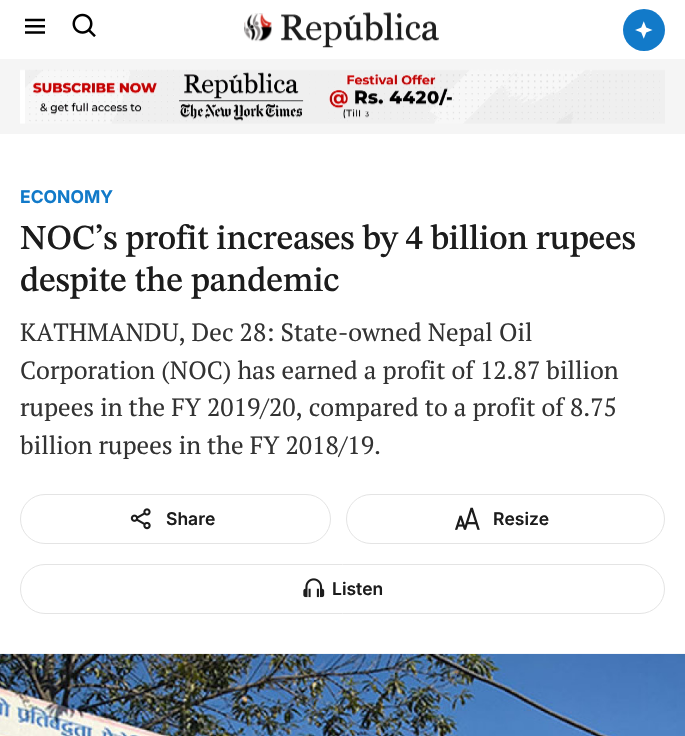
void draw(SkCanvas* canvas) {
	SkPaint fill;
	fill.setAntiAlias(true);
	auto makeFont = [&](const char* family, int weight, float size, bool italic = false) {
		SkFontStyle style(weight, SkFontStyle::kNormal_Width,
			italic ? SkFontStyle::kItalic_Slant : SkFontStyle::kUpright_Slant);
		SkFont result(fontMgr->matchFamilyStyle(family, style), size);
		result.setSubpixel(true);
		return result;
	};
	auto text = [&](const char* s, float x, float y, const SkFont& font) {
		canvas->drawString(s, x, y, font, fill);
	};
	auto spacedText = [&](const char* s, float x, float y, const SkFont& font, const SkPaint& ink, float letter, float word) {
		std::vector<SkGlyphID> glyphs(font.countText(s, strlen(s), SkTextEncoding::kUTF8));
		std::vector<float> xs(glyphs.size());
		font.textToGlyphs(s, strlen(s), SkTextEncoding::kUTF8, glyphs);
		font.getXPos(glyphs, xs, x);
		float extra = 0;
		for (size_t i = 0; i < glyphs.size(); i++) {
			xs[i] += extra;
			extra += letter + word * (glyphs[i] == font.unicharToGlyph(' '));
		}
		canvas->drawTextBlob(SkTextBlob::MakeFromPosHGlyphs(glyphs, xs, y, font), 0, 0, ink);
	};
	auto box = [&](float l, float t, float r, float b) {
		canvas->drawRect(SkRect::MakeLTRB(l, t, r, b), fill);
	};
	auto picture = [&](const char* path, float l, float t, float r, float b) {
		auto image = SkImages::DeferredFromEncodedData(SkData::MakeFromFileName(path));
		canvas->drawImageRect(image, SkRect::MakeLTRB(l, t, r, b), SkSamplingOptions());
	};
	canvas->clear(0xFFFFFFFF);
	picture("image0.png", 25, 18, 45, 34);
	picture("image1.png", 72, 13, 96, 37);
	picture("image2.png", 244, 12, 439, 48);
	fill.setColor(0xFF127AC9);
	canvas->drawCircle(644, 30, 21, fill);
	picture("image3.png", 635, 21, 653, 39);
	fill.setColor(0xFFF5F5F5);
	box(0, 59, 685, 134);
	picture("image4.png", 20, 69, 665, 124);
	fill.setStyle(SkPaint::kStroke_Style);
	fill.setStrokeWidth(1);
	fill.setColor(0xFFE4E4E4);
	canvas->drawRoundRect(SkRect::MakeLTRB(20.5f, 494.5f, 330.5f, 543.5f), 24.5f, 24.5f, fill);
	picture("image5.png", 130, 508, 151, 530);
	canvas->drawRoundRect(SkRect::MakeLTRB(346.5f, 494.5f, 664.5f, 543.5f), 24.5f, 24.5f, fill);
	picture("image6.png", 455, 507, 480, 530);
	canvas->drawRoundRect(SkRect::MakeLTRB(20.5f, 564.5f, 664.5f, 613.5f), 24.5f, 24.5f, fill);
	picture("image7.png", 303, 578, 325, 598);
	picture("image8.png", 0, 653, 685, 736);
	auto font1 = makeFont("Inter", 700, 17.5f);
	fill.setStyle(SkPaint::kFill_Style);
	fill.setColor(0xFF127AC9);
	text("ECONOMY", 20, 203, font1);
	auto font2 = makeFont("STIX Two Text", 500, 35);
	fill.setColor(0xFF1C1C1C);
	spacedText("NOC’s profit increases by 4 billion rupees", 20, 249, font2, fill, -0.35f, 0);
	spacedText("despite the pandemic", 20, 291, font2, fill, -0.35f, 0);
	auto font3 = makeFont("PT Serif", 400, 25);
	fill.setColor(0xFF333333);
	text("KATHMANDU, Dec 28: State-owned Nepal Oil", 20, 341, font3);
	text("Corporation (NOC) has earned a profit of 12.87 billion", 20, 379, font3);
	text("rupees in the FY 2019/20, compared to a profit of 8.75", 20, 416, font3);
	text("billion rupees in the FY 2018/19.", 20, 454, font3);
	auto font4 = makeFont("Inter", 600, 17.5f);
	fill.setColor(0xFF1C1C1C);
	text("Share", 166, 525, font4);
	text("Resize", 493, 525, font4);
	text("Listen", 332, 595, font4);
}
